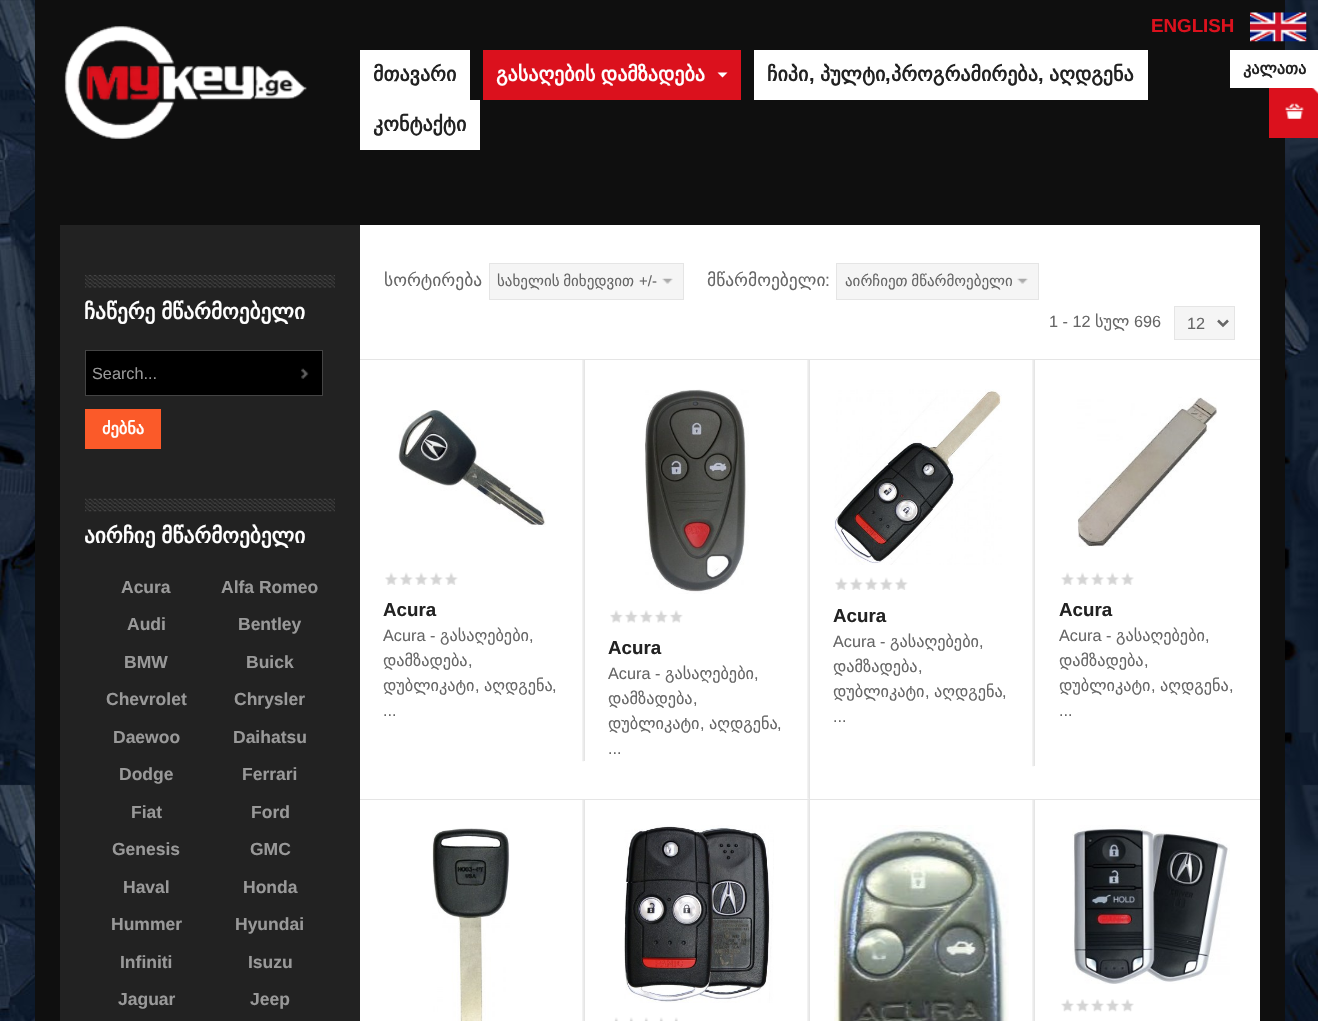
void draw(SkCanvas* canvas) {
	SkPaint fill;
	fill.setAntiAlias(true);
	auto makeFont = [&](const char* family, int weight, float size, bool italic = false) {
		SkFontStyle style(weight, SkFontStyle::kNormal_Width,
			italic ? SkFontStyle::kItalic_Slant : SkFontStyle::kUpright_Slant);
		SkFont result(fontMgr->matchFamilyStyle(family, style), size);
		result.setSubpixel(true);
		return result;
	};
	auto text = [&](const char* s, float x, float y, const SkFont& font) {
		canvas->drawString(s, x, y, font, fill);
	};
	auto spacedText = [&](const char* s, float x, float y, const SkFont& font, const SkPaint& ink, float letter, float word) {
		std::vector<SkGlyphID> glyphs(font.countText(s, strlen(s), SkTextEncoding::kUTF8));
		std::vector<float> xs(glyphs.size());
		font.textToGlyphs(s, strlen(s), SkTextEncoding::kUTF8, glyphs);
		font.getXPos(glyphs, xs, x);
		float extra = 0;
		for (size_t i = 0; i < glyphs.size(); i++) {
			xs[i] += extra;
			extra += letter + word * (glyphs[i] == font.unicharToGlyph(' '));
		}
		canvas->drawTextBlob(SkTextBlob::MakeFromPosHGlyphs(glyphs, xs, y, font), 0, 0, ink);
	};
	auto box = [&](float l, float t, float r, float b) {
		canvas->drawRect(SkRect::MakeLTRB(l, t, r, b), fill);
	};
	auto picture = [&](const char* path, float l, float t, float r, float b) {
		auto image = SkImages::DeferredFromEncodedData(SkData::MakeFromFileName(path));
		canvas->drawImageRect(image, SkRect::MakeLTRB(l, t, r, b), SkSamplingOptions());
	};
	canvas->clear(0xFFFFFFFF);
	picture("image0.png", 0, 0, 1318, 1021);
	fill.setColor(0xFF0F0F0F);
	box(35, 0, 1285, 1021);
	picture("image1.png", 64, 26, 307, 139);
	fill.setColor(0xFFFFFFFF);
	box(360, 50, 470, 100);
	fill.setColor(0xFFDB111D);
	box(483, 50, 741, 100);
	fill.setColor(0xFFFFFFFF);
	canvas->drawPath(SkPathBuilder().moveTo(717.5f, 72.5f).lineTo(727.5f, 72.5f).lineTo(722.5f, 77.5f).close().detach(), fill);
	box(754, 50, 1148, 100);
	box(360, 100, 480, 150);
	picture("image2.png", 1250, 12, 1307, 42);
	box(1230, 50, 1318, 88);
	fill.setColor(0xFFDB111D);
	box(1269, 88, 1318, 138);
	picture("image3.png", 1285, 88, 1318, 119);
	fill.setColor(0xFF222222);
	box(60, 225, 360, 1021);
	picture("image4.png", 85, 275, 335, 288);
	fill.setColor(0xFF000000);
	box(86, 351, 322, 395);
	picture("image5.png", 301, 368, 309, 379);
	fill.setStyle(SkPaint::kStroke_Style);
	fill.setStrokeWidth(1);
	fill.setColor(0xFF444444);
	canvas->drawRect(SkRect::MakeLTRB(85.5f, 350.5f, 322.5f, 395.5f), fill);
	fill.setStyle(SkPaint::kFill_Style);
	fill.setColor(0xFFFB5A29);
	box(85, 409, 161, 449);
	picture("image6.png", 85, 498, 335, 512);
	fill.setColor(0xFFFFFFFF);
	box(360, 225, 1260, 1021);
	fill.setColor(0xFFE5E5E5);
	box(360, 359, 1260, 360);
	fill.setColor(0xFFF5F5F5);
	box(490, 264, 683, 299);
	picture("image7.png", 662, 278, 673, 284);
	fill.setStyle(SkPaint::kStroke_Style);
	fill.setColor(0xFFE5E5E5);
	canvas->drawRect(SkRect::MakeLTRB(489.5f, 263.5f, 683.5f, 299.5f), fill);
	fill.setStyle(SkPaint::kFill_Style);
	fill.setColor(0xFFF5F5F5);
	box(837, 264, 1038, 299);
	picture("image7.png", 1017, 278, 1028, 284);
	fill.setStyle(SkPaint::kStroke_Style);
	fill.setColor(0xFFE5E5E5);
	canvas->drawRect(SkRect::MakeLTRB(836.5f, 263.5f, 1038.5f, 299.5f), fill);
	fill.setStyle(SkPaint::kFill_Style);
	fill.setColor(0xFFF5F5F5);
	canvas->drawRect(SkRect::MakeLTRB(1174.5f, 306.5f, 1234.5f, 339.5f), fill);
	fill.setStyle(SkPaint::kStroke_Style);
	fill.setColor(0xFFE5E5E5);
	canvas->drawRect(SkRect::MakeLTRB(1174.5f, 306.5f, 1234.5f, 339.5f), fill);
	fill.setStrokeWidth(2.5f);
	fill.setColor(0xFF666666);
	canvas->drawPath(SkPathBuilder().moveTo(1218, 320.5f).lineTo(1223, 325.5f).lineTo(1228, 320.5f).detach(), fill);
	picture("image8.png", 582, 360, 584, 762);
	fill.setStyle(SkPaint::kFill_Style);
	fill.setColor(0xFFE5E5E5);
	box(584, 360, 585, 761);
	picture("image9.png", 398, 410, 546, 527);
	picture("image10.png", 385, 572, 458, 585);
	picture("image11.png", 807, 360, 809, 799);
	box(809, 360, 810, 799);
	picture("image12.png", 645, 389, 749, 594);
	picture("image13.png", 610, 610, 683, 623);
	picture("image14.png", 1032, 360, 1034, 767);
	box(1034, 360, 1035, 766);
	picture("image15.png", 834, 389, 1002, 565);
	picture("image16.png", 835, 577, 908, 590);
	picture("image17.png", 1077, 397, 1217, 547);
	picture("image18.png", 1061, 572, 1134, 585);
	box(360, 799, 1260, 800);
	picture("image19.png", 582, 800, 584, 1021);
	box(584, 800, 585, 1021);
	picture("image20.png", 432, 828, 510, 1021);
	picture("image19.png", 807, 800, 809, 1021);
	box(809, 800, 810, 1021);
	picture("image21.png", 624, 825, 774, 1003);
	picture("image22.png", 614, 1017, 678, 1021);
	picture("image19.png", 1032, 800, 1034, 1021);
	box(1034, 800, 1035, 1021);
	picture("image23.png", 834, 825, 1009, 1021);
	picture("image24.png", 1072, 825, 1230, 984);
	picture("image25.png", 1061, 999, 1134, 1012);
	auto font1 = makeFont("DejaVu Sans", 700, 20);
	fill.setColor(0xFF222222);
	text("მთავარი", 373, 81, font1);
	fill.setColor(0xFFFFFFFF);
	spacedText("გასაღების დამზადება", 496, 81, font1, fill, 0, -1);
	fill.setColor(0xFF222222);
	text("ჩიპი", 767, 81, font1);
	auto font2 = makeFont("Liberation Sans", 700, 20);
	text(",", 809, 81, font2);
	text("პულტი", 820, 81, font1);
	text(",", 885, 81, font2);
	text("პროგრამირება", 891, 81, font1);
	text(",", 1038, 81, font2);
	text("აღდგენა", 1049, 81, font1);
	text("კონტაქტი", 373, 131, font1);
	auto font3 = makeFont("Liberation Sans", 700, 18.75f);
	fill.setColor(0xFFDB111D);
	text("ENGLISH", 1151, 32, font3);
	auto font4 = makeFont("DejaVu Sans", 700, 16.25f);
	fill.setColor(0xFF222222);
	text("კალათა", 1243, 74, font4);
	auto font5 = makeFont("DejaVu Sans", 700, 21.25f);
	fill.setColor(0xFFFFFFFF);
	spacedText("ჩაწერე მწარმოებელი", 84, 319, font5, fill, 0, -1);
	auto font6 = makeFont("Liberation Sans", 400, 16.25f);
	fill.setColor(0xFF999999);
	text("Search...", 92, 379, font6);
	fill.setColor(0xFFFFFFFF);
	text("ძებნა", 102, 434, font4);
	spacedText("აირჩიე მწარმოებელი", 84, 543, font5, fill, 0, -1);
	auto font7 = makeFont("Liberation Sans", 700, 17.5f);
	fill.setColor(0xFF999999);
	text("Acura", 121, 593, font7);
	text("Alfa Romeo", 221, 593, font7);
	text("Audi", 127, 630, font7);
	text("Bentley", 238, 630, font7);
	text("BMW", 124, 668, font7);
	text("Buick", 246, 668, font7);
	text("Chevrolet", 106, 705, font7);
	text("Chrysler", 234, 705, font7);
	text("Daewoo", 113, 743, font7);
	text("Daihatsu", 233, 743, font7);
	text("Dodge", 119, 780, font7);
	text("Ferrari", 242, 780, font7);
	text("Fiat", 131, 818, font7);
	text("Ford", 251, 818, font7);
	text("Genesis", 112, 855, font7);
	text("GMC", 250, 855, font7);
	text("Haval", 123, 893, font7);
	text("Honda", 243, 893, font7);
	text("Hummer", 111, 930, font7);
	text("Hyundai", 235, 930, font7);
	text("Infiniti", 120, 968, font7);
	text("Isuzu", 248, 968, font7);
	text("Jaguar", 118, 1005, font7);
	text("Jeep", 250, 1005, font7);
	auto font8 = makeFont("DejaVu Sans", 400, 17.5f);
	fill.setColor(0xFF666666);
	text("სორტირება", 384, 286, font8);
	auto font9 = makeFont("DejaVu Sans", 400, 15);
	spacedText("სახელის მიხედვით", 497, 286, font9, fill, 0, -1);
	auto font10 = makeFont("Liberation Sans", 400, 15);
	text("+/-", 639, 286, font10);
	text("მწარმოებელი", 707, 286, font8);
	auto font11 = makeFont("Liberation Sans", 400, 17.5f);
	text(":", 825, 286, font11);
	spacedText("აირჩიეთ მწარმოებელი", 845, 286, font9, fill, 0, -1);
	text("1 - 12", 1049, 327, font6);
	auto font12 = makeFont("DejaVu Sans", 400, 16.25f);
	text("სულ", 1095, 327, font12);
	text("696", 1134, 327, font6);
	text("12", 1187, 329, font6);
	fill.setColor(0xFF222222);
	text("Acura", 383, 616, font3);
	fill.setColor(0xFF666666);
	text("Acura -", 383, 641, font6);
	text("გასაღებები", 440, 641, font12);
	text(",", 529, 641, font6);
	text("დამზადება", 383, 666, font12);
	text(",", 468, 666, font6);
	text("დუბლიკატი", 383, 691, font12);
	text(",", 475, 691, font6);
	text("აღდგენა", 484, 691, font12);
	text(",", 552, 691, font6);
	text("...", 383, 716, font6);
	fill.setColor(0xFF222222);
	text("Acura", 608, 654, font3);
	fill.setColor(0xFF666666);
	text("Acura -", 608, 679, font6);
	text("გასაღებები", 665, 679, font12);
	text(",", 754, 679, font6);
	text("დამზადება", 608, 704, font12);
	text(",", 693, 704, font6);
	text("დუბლიკატი", 608, 729, font12);
	text(",", 700, 729, font6);
	text("აღდგენა", 709, 729, font12);
	text(",", 777, 729, font6);
	text("...", 608, 754, font6);
	fill.setColor(0xFF222222);
	text("Acura", 833, 622, font3);
	fill.setColor(0xFF666666);
	text("Acura -", 833, 647, font6);
	text("გასაღებები", 890, 647, font12);
	text(",", 979, 647, font6);
	text("დამზადება", 833, 672, font12);
	text(",", 918, 672, font6);
	text("დუბლიკატი", 833, 697, font12);
	text(",", 925, 697, font6);
	text("აღდგენა", 934, 697, font12);
	text(",", 1002, 697, font6);
	text("...", 833, 722, font6);
	fill.setColor(0xFF222222);
	text("Acura", 1059, 616, font3);
	fill.setColor(0xFF666666);
	text("Acura -", 1059, 641, font6);
	text("გასაღებები", 1116, 641, font12);
	text(",", 1205, 641, font6);
	text("დამზადება", 1059, 666, font12);
	text(",", 1144, 666, font6);
	text("დუბლიკატი", 1059, 691, font12);
	text(",", 1151, 691, font6);
	text("აღდგენა", 1160, 691, font12);
	text(",", 1229, 691, font6);
	text("...", 1059, 716, font6);
}
